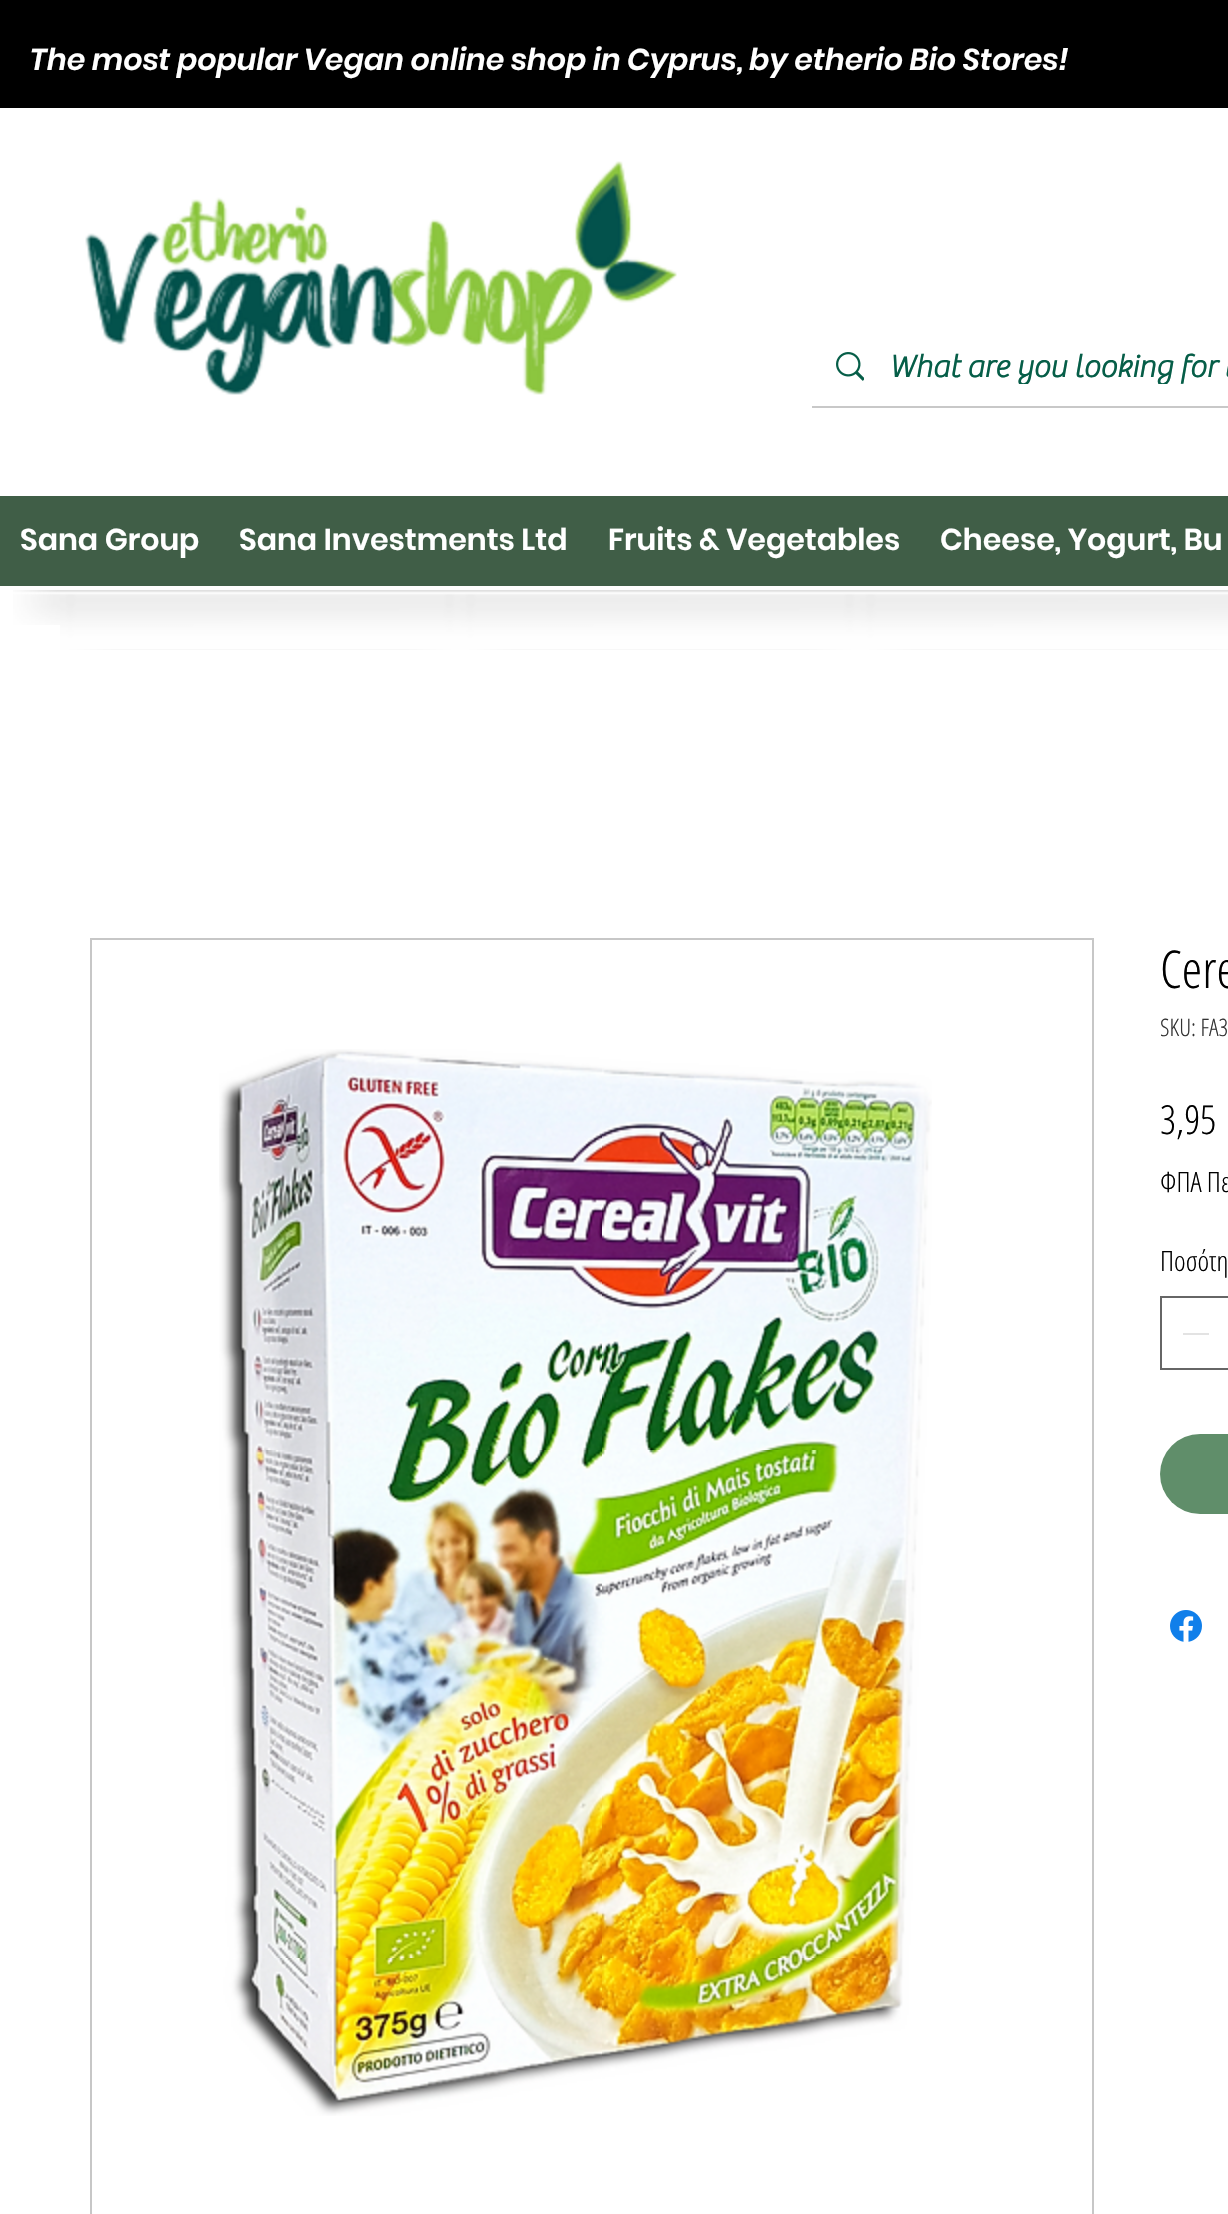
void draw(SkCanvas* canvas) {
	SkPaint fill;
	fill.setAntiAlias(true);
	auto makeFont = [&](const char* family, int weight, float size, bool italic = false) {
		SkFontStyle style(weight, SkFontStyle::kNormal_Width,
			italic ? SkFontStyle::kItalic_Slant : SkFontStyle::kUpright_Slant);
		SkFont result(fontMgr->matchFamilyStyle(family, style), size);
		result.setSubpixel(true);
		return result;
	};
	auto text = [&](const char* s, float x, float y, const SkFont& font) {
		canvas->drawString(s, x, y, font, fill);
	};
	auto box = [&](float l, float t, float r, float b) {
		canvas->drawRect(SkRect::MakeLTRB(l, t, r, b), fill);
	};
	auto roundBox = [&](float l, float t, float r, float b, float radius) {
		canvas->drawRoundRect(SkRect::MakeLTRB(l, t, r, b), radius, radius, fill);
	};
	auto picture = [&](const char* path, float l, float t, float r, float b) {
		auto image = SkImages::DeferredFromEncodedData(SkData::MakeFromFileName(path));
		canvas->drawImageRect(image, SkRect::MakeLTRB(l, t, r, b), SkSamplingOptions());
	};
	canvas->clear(0xFFFFFFFF);
	fill.setColor(0xFF000000);
	box(0, 0, 1228, 108);
	picture("image0.png", 85, 161, 677, 395);
	fill.setColor(0xFFC8C8C8);
	box(812, 406, 1228, 408);
	picture("image1.png", 836, 352, 864, 381);
	fill.setColor(0xFF405E47);
	box(0, 496, 1228, 586);
	picture("image2.png", 13, 590, 60, 625);
	picture("image3.png", 60, 590, 1228, 650);
	fill.setStyle(SkPaint::kStroke_Style);
	fill.setStrokeWidth(2);
	fill.setColor(0xFFC7C7C7);
	canvas->drawRect(SkRect::MakeLTRB(91, 939, 1093, 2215), fill);
	picture("image4.png", 219, 1049, 932, 2116);
	fill.setColor(0xFF666666);
	canvas->drawRect(SkRect::MakeLTRB(1161, 1297, 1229, 1369), fill);
	fill.setStyle(SkPaint::kFill_Style);
	fill.setColor(0xFFE3E3E3);
	box(1183, 1333, 1209, 1335);
	fill.setColor(0xFF608E6A);
	roundBox(1160, 1434, 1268, 1514, 40);
	picture("image5.png", 1170, 1610, 1202, 1642);
	auto font1 = makeFont("Poppins", 600, 30, true);
	fill.setColor(0xFFFFFFFF);
	text("The most popular Vegan online shop in Cyprus, by etherio Bio Stores!", 30, 70, font1);
	canvas->save();
	canvas->clipRect(SkRect::MakeLTRB(888, 348, 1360, 384));
	auto font2 = makeFont("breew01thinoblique", 700, 32);
	fill.setColor(0xFF065E48);
	text("What are you looking for t", 889, 377, font2);
	canvas->restore();
	auto font3 = makeFont("Poppins", 600, 30);
	fill.setColor(0xFFFFFFFF);
	text("Sana Group", 20, 550, font3);
	text("Sana Investments Ltd", 239, 550, font3);
	text("Fruits & Vegetables", 608, 550, font3);
	text("Cheese, Yogurt, Bu", 940, 550, font3);
	auto font4 = makeFont("Open Sans Condensed", 300, 52);
	fill.setColor(0xFF000000);
	text("Cere", 1160, 988, font4);
	auto font5 = makeFont("Open Sans Condensed", 300, 24);
	fill.setColor(0xFF333333);
	text("SKU: FA3", 1160, 1036, font5);
	auto font6 = makeFont("Open Sans Condensed", 300, 40);
	fill.setColor(0xFF000000);
	text("3,95", 1160, 1134, font6);
	auto font7 = makeFont("Open Sans Condensed", 300, 28);
	text("ΦΠΑ Πε", 1160, 1192, font7);
	text("Ποσότη", 1160, 1271, font7);
}
